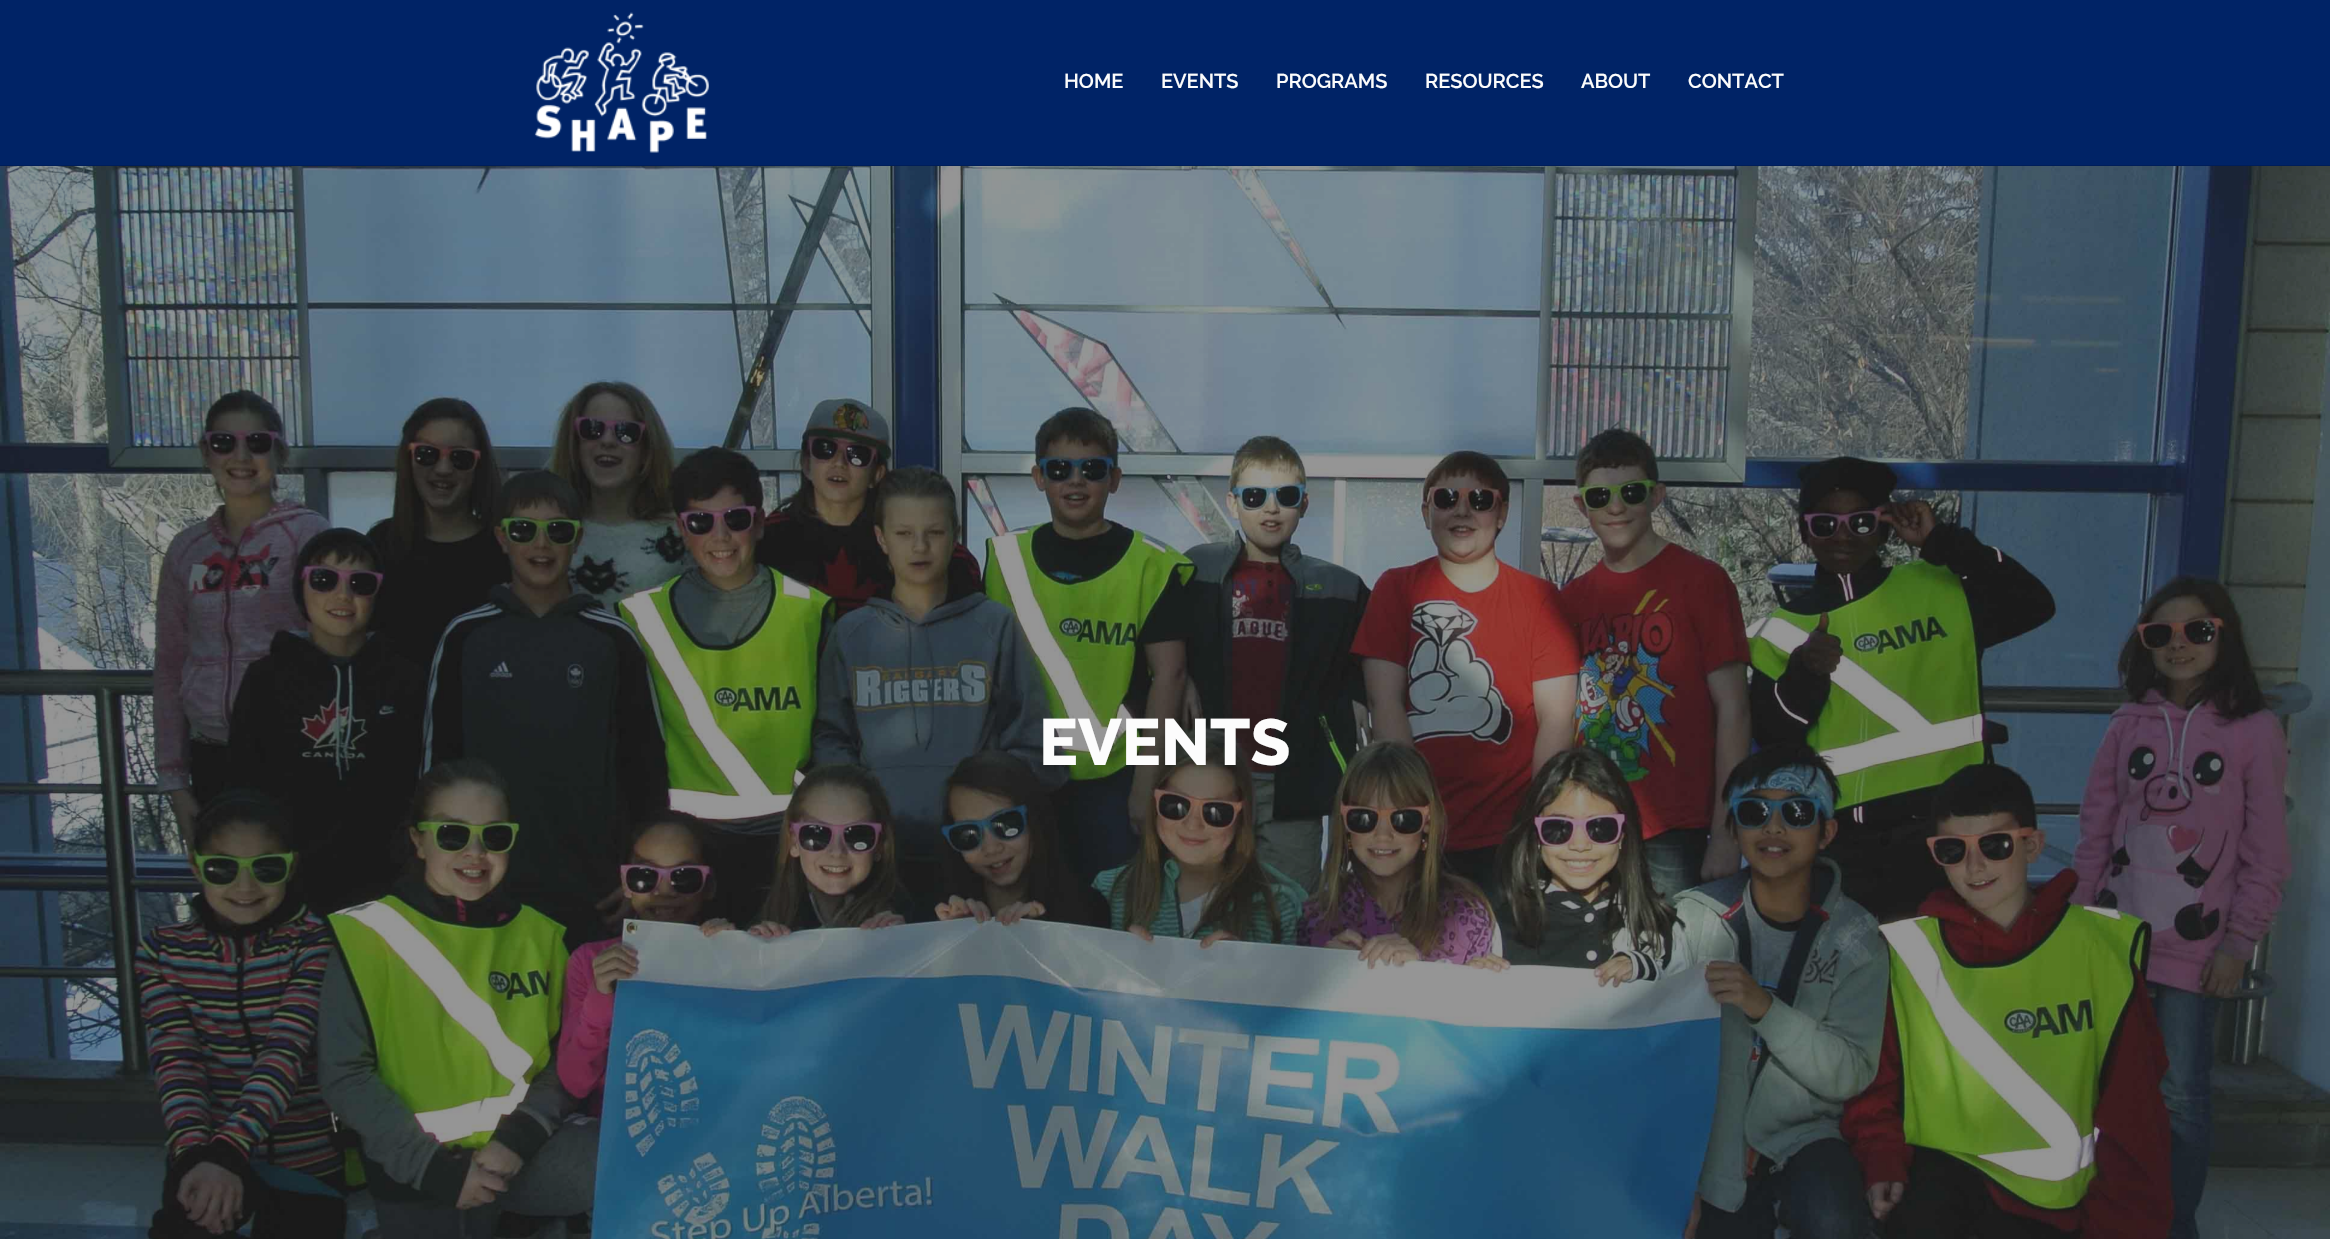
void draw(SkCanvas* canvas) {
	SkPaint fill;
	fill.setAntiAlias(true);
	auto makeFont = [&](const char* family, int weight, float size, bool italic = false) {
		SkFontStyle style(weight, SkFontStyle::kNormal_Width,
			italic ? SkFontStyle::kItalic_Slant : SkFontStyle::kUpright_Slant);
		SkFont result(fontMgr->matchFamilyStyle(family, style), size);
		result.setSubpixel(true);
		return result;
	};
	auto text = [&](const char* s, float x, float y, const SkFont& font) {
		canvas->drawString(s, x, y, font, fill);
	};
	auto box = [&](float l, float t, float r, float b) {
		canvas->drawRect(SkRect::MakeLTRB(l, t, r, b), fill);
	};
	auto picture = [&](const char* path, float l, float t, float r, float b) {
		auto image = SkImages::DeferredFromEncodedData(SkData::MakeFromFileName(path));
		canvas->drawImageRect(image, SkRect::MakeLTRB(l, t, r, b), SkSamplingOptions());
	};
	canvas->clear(0xFFFFFFFF);
	fill.setColor(0xFF002366);
	box(0, 0, 2330, 165);
	fill.setColor(0xFF001E59);
	box(0, 165, 2330, 166);
	picture("image0.png", 534, 12, 709, 153);
	picture("image1.png", 0, 166, 2330, 1239);
	auto font1 = makeFont("Raleway", 600, 20);
	fill.setColor(0xFFFCFCFC);
	text("HOME", 1064, 88, font1);
	text("EVENTS", 1161, 88, font1);
	text("PROGRAMS", 1276, 88, font1);
	text("RESOURCES", 1425, 88, font1);
	text("ABOUT", 1581, 88, font1);
	text("CONTACT", 1688, 88, font1);
	auto font2 = makeFont("Raleway", 800, 65);
	text("EVENTS", 1039, 765, font2);
}
